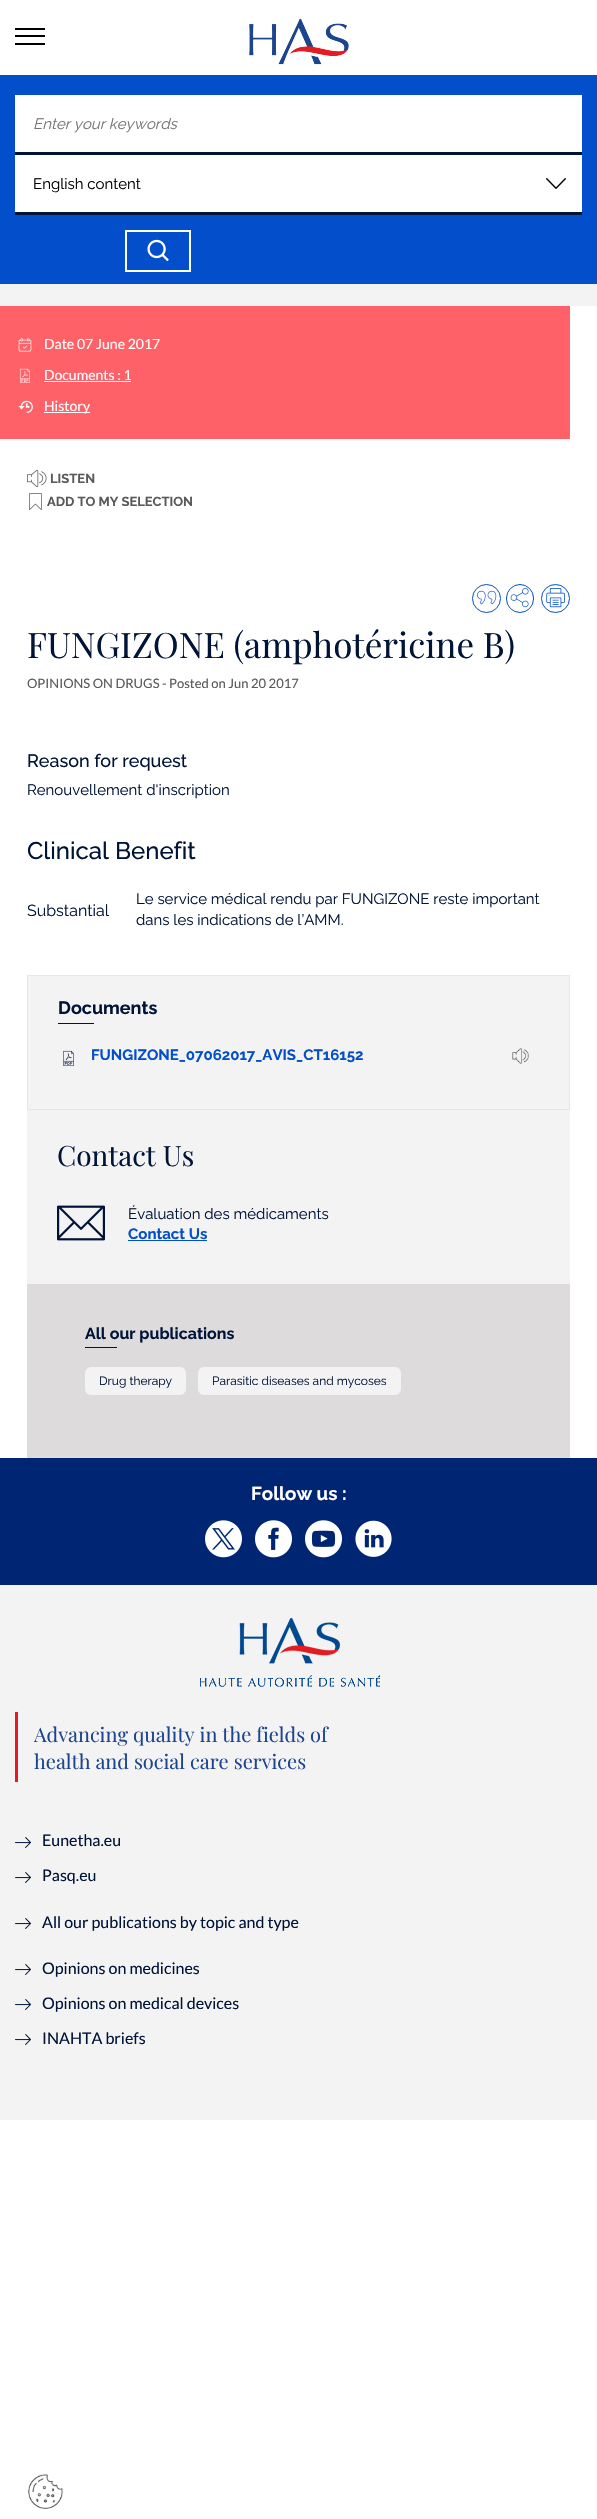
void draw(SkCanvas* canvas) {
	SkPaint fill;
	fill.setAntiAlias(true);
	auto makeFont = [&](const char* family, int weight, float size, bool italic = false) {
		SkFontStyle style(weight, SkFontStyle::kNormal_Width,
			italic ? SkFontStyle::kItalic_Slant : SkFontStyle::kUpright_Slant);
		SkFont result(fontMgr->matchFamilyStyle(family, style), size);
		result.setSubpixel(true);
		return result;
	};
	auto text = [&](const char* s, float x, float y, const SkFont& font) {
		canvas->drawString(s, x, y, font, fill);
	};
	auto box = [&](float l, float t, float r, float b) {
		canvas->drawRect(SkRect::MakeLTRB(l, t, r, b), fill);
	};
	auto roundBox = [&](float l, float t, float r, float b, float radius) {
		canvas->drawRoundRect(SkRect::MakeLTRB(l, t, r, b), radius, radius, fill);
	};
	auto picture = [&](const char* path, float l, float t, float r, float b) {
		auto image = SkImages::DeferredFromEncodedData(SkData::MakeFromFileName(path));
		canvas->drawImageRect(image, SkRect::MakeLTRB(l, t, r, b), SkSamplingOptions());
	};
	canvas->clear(0xFFFFFFFF);
	fill.setColor(0xFF000000);
	box(15, 28, 45, 30);
	box(15, 35, 45, 37);
	box(15, 43, 45, 45);
	picture("image0.png", 249, 19, 349, 65);
	fill.setColor(0xFF034ECA);
	box(0, 75, 597, 284);
	fill.setColor(0xFFFFFFFF);
	box(15, 95, 582, 152);
	fill.setColor(0xFF001438);
	box(15, 152, 582, 155);
	fill.setColor(0xFFFFFFFF);
	box(15, 155, 582, 212);
	picture("image1.png", 546, 178, 566, 189);
	fill.setColor(0xFF001438);
	box(15, 212, 582, 215);
	fill.setStyle(SkPaint::kStroke_Style);
	fill.setStrokeWidth(2);
	fill.setColor(0xFFFFFFFF);
	canvas->drawRect(SkRect::MakeLTRB(126, 231, 190, 271), fill);
	picture("image2.png", 147, 239, 169, 262);
	fill.setStyle(SkPaint::kFill_Style);
	fill.setColor(0xFFF4F3F3);
	box(0, 284, 597, 306);
	fill.setColor(0xFFFF6168);
	box(0, 306, 570, 439);
	picture("image3.png", 18, 338, 32, 352);
	picture("image4.png", 20, 368, 30, 383);
	fill.setColor(0xFFFFFFFF);
	box(44, 381, 131, 382);
	picture("image5.png", 18, 400, 33, 413);
	box(44, 412, 90, 413);
	picture("image6.png", 27, 469, 47, 488);
	picture("image7.png", 29, 493, 42, 510);
	fill.setStyle(SkPaint::kStroke_Style);
	fill.setStrokeWidth(1);
	fill.setColor(0xFF034ECA);
	canvas->drawCircle(486.5f, 598.5f, 14, fill);
	picture("image8.png", 477, 590, 497, 605);
	canvas->drawRoundRect(SkRect::MakeLTRB(506.5f, 584.5f, 533.5f, 612.5f), 13.5f, 13.5f, fill);
	picture("image9.png", 510, 588, 529, 608);
	canvas->drawCircle(555.5f, 598.5f, 14, fill);
	picture("image10.png", 546, 588, 565, 608);
	fill.setStyle(SkPaint::kFill_Style);
	fill.setColor(0xFFF4F3F3);
	canvas->drawRect(SkRect::MakeLTRB(27.5f, 975.5f, 569.5f, 1109.5f), fill);
	fill.setStyle(SkPaint::kStroke_Style);
	fill.setColor(0xFFE6E6E6);
	canvas->drawRect(SkRect::MakeLTRB(27.5f, 975.5f, 569.5f, 1109.5f), fill);
	fill.setStyle(SkPaint::kFill_Style);
	fill.setColor(0xFF001438);
	box(58, 1023, 94, 1024);
	picture("image11.png", 63, 1050, 74, 1066);
	picture("image12.png", 512, 1048, 529, 1064);
	fill.setColor(0xFFF4F3F3);
	box(27, 1110, 570, 1284);
	picture("image13.png", 57, 1205, 105, 1241);
	fill.setColor(0xFF034ECA);
	box(128, 1240, 207, 1241);
	fill.setColor(0xFFDDDBDB);
	box(27, 1284, 570, 1458);
	fill.setColor(0xFF001438);
	box(85, 1347, 117, 1348);
	fill.setColor(0xFFF4F3F3);
	roundBox(85, 1367, 186, 1395, 6);
	roundBox(198, 1367, 401, 1395, 6);
	fill.setColor(0xFF002572);
	box(0, 1458, 597, 1585);
	picture("image14.png", 205, 1520, 242, 1558);
	picture("image15.png", 255, 1520, 292, 1558);
	picture("image16.png", 305, 1520, 342, 1558);
	picture("image17.png", 355, 1520, 392, 1557);
	fill.setColor(0xFFF4F3F3);
	box(0, 1585, 597, 2120);
	picture("image18.png", 200, 1618, 380, 1687);
	fill.setColor(0xFFE51B24);
	box(15, 1712, 18, 1782);
	picture("image19.png", 15, 1837, 31, 1848);
	picture("image19.png", 15, 1872, 31, 1883);
	picture("image19.png", 15, 1918, 31, 1929);
	picture("image19.png", 15, 1964, 31, 1975);
	picture("image19.png", 15, 1999, 31, 2010);
	picture("image19.png", 15, 2034, 31, 2045);
	picture("image20.png", 28, 2474, 63, 2509);
	auto font1 = makeFont("Raleway", 400, 15, true);
	fill.setColor(0xFF757575);
	text("Enter your keywords", 33, 129, font1);
	auto font2 = makeFont("Raleway", 400, 15);
	fill.setColor(0xFF000000);
	text("English content", 33, 189, font2);
	auto font3 = makeFont("Lato", 400, 14);
	fill.setColor(0xFFFFFFFF);
	text("Date 07 June 2017", 44, 349, font3);
	text("Documents : 1", 44, 380, font3);
	text("History", 44, 411, font3);
	auto font4 = makeFont("Raleway", 700, 13);
	fill.setColor(0xFF595959);
	text("LISTEN", 50, 483, font4);
	text("ADD TO MY SELECTION", 47, 506, font4);
	auto font5 = makeFont("Playfair Display", 400, 35);
	fill.setColor(0xFF001438);
	text("FUNGIZONE (amphotéricine B)", 27, 658, font5);
	auto font6 = makeFont("Lato", 400, 13);
	fill.setColor(0xFF595959);
	text("OPINIONS ON DRUGS - Posted on Jun 20 2017", 27, 688, font6);
	auto font7 = makeFont("Raleway", 500, 18);
	fill.setColor(0xFF001438);
	text("Reason for request", 27, 767, font7);
	text("Renouvellement d'inscription", 27, 795, font2);
	auto font8 = makeFont("Raleway", 500, 24);
	text("Clinical Benefit", 27, 859, font8);
	auto font9 = makeFont("Raleway", 400, 16);
	text("Substantial", 27, 916, font9);
	text("Le service médical rendu par FUNGIZONE reste important", 136, 904, font2);
	text("dans les indications de l’AMM.", 136, 925, font2);
	auto font10 = makeFont("Raleway", 700, 18);
	text("Documents", 58, 1014, font10);
	auto font11 = makeFont("Raleway", 700, 15);
	fill.setColor(0xFF034ECA);
	text("FUNGIZONE_07062017_AVIS_CT16152", 91, 1060, font11);
	auto font12 = makeFont("Playfair Display", 400, 28);
	fill.setColor(0xFF001438);
	text("Contact Us", 57, 1166, font12);
	text("Évaluation des médicaments", 128, 1219, font2);
	fill.setColor(0xFF034ECA);
	text("Contact Us", 128, 1239, font11);
	auto font13 = makeFont("Raleway", 700, 16);
	fill.setColor(0xFF001438);
	text("All our publications", 85, 1339, font13);
	auto font14 = makeFont("Raleway", 400, 12);
	text("Drug therapy", 99, 1385, font14);
	text("Parasitic diseases and mycoses", 212, 1385, font14);
	auto font15 = makeFont("Raleway", 700, 18.75f);
	fill.setColor(0xFFFFFFFF);
	text("Follow us :", 251, 1500, font15);
	auto font16 = makeFont("Playfair Display", 400, 20);
	fill.setColor(0xFF1B458F);
	text("Advancing quality in the fields of", 34, 1742, font16);
	text("health and social care services", 34, 1769, font16);
	auto font17 = makeFont("Lato", 400, 16);
	fill.setColor(0xFF001438);
	text("Eunetha.eu", 42, 1846, font17);
	text("Pasq.eu", 42, 1881, font17);
	text("All our publications by topic and type", 42, 1928, font17);
	text("Opinions on medicines", 42, 1974, font17);
	text("Opinions on medical devices", 42, 2009, font17);
	text("INAHTA briefs", 42, 2044, font17);
}
